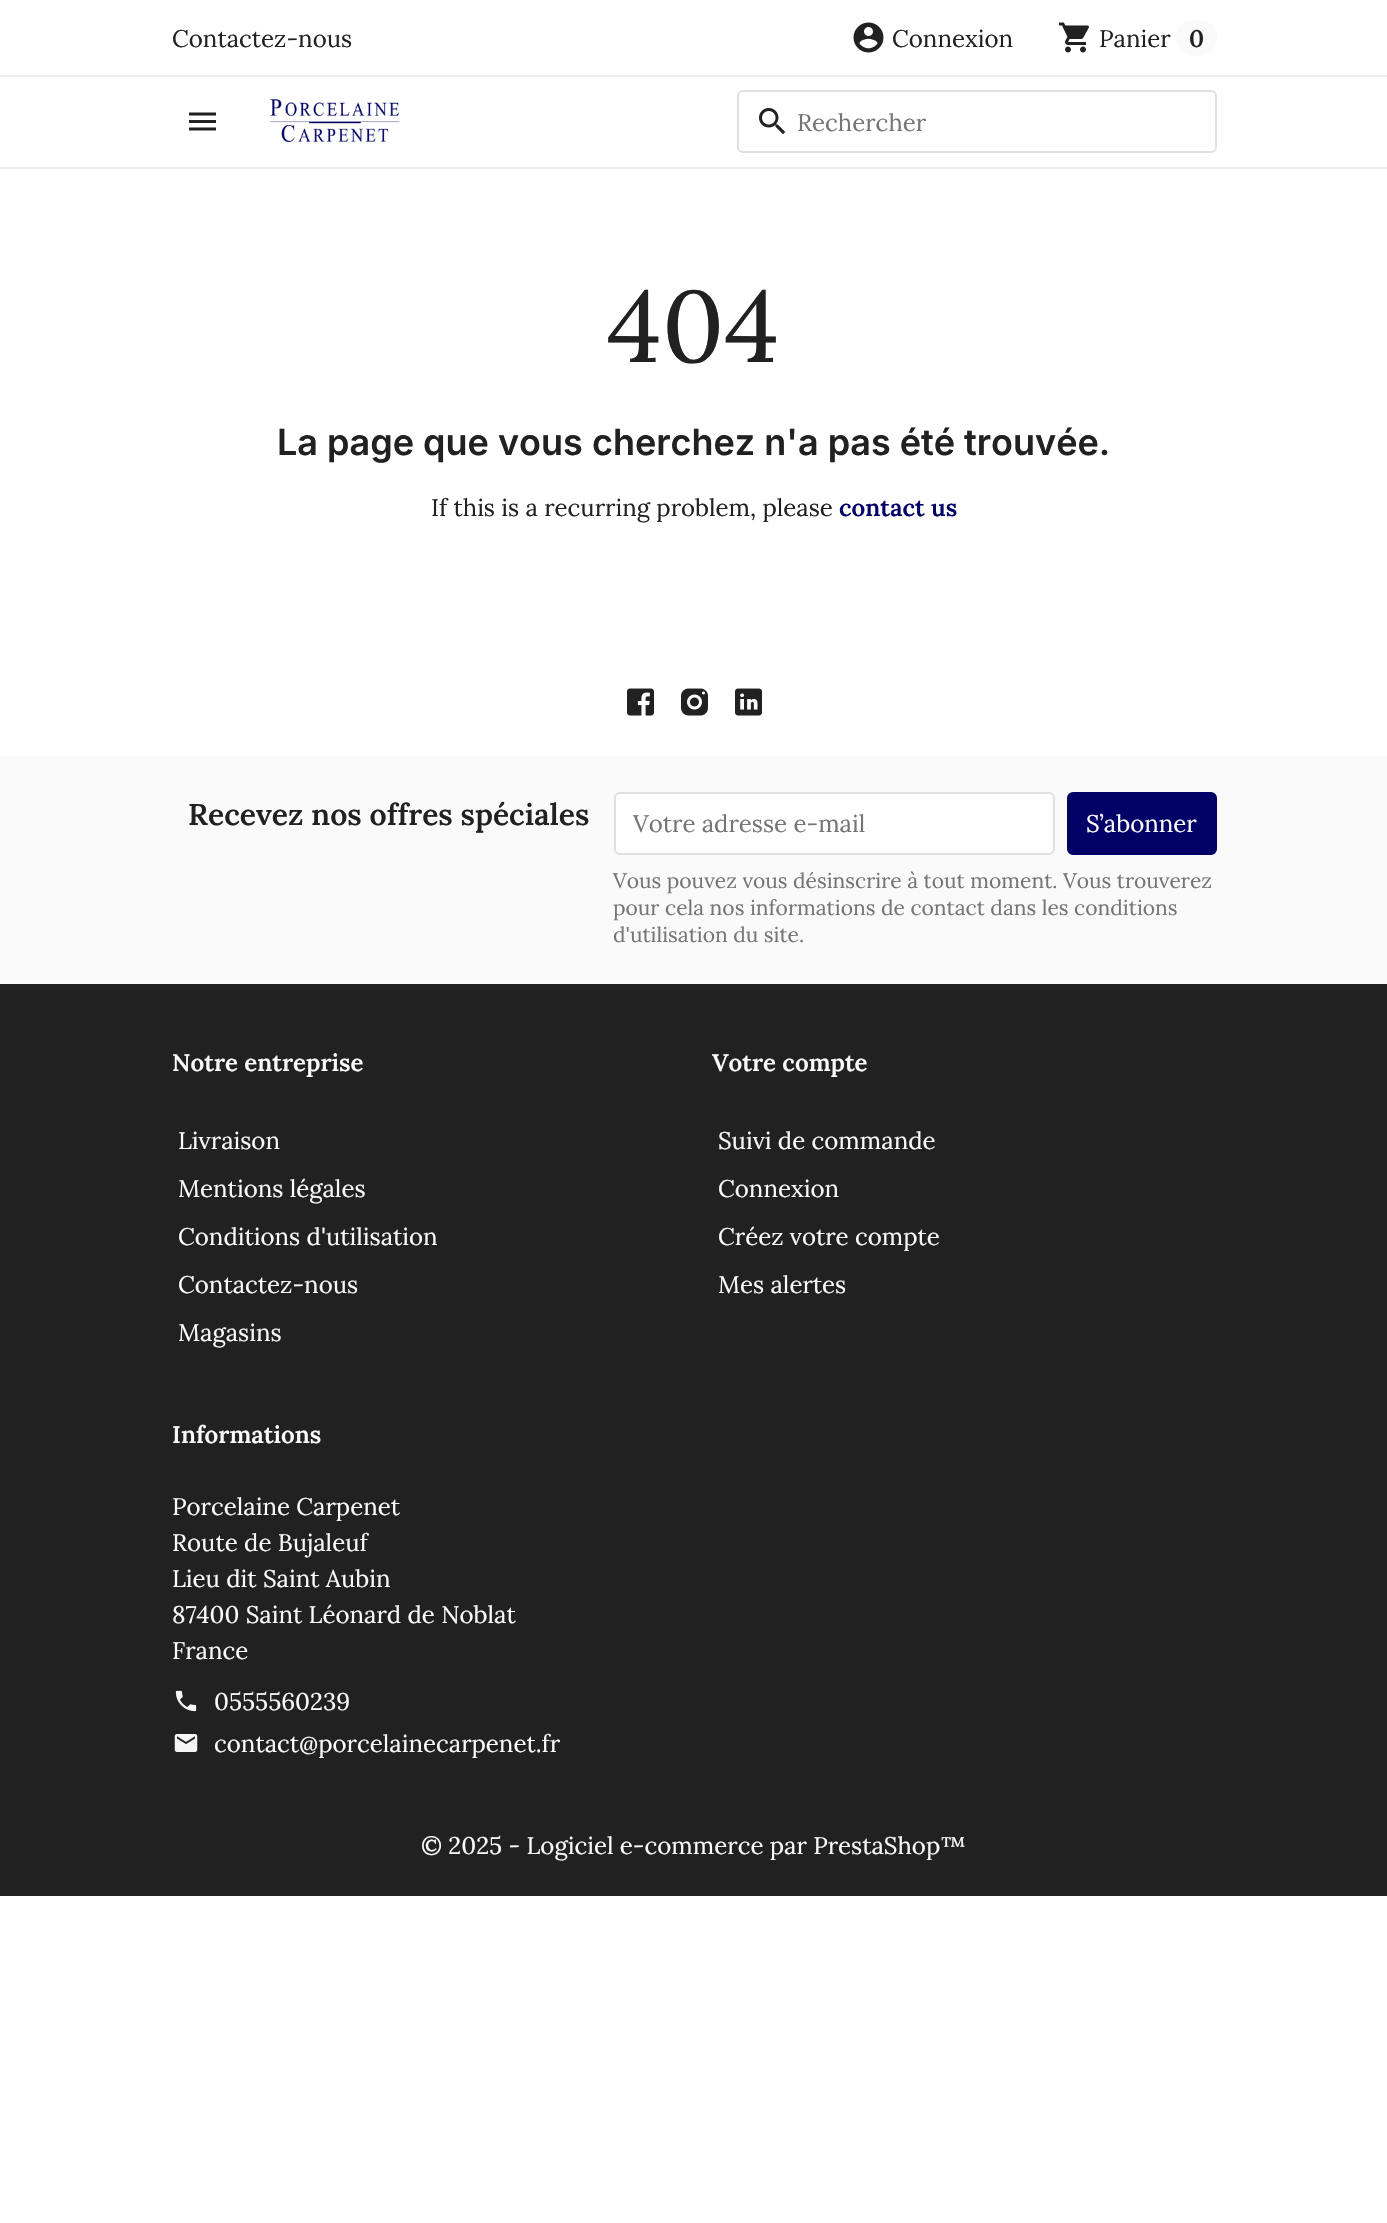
void draw(SkCanvas* canvas) {
	SkPaint fill;
	fill.setAntiAlias(true);
	auto makeFont = [&](const char* family, int weight, float size, bool italic = false) {
		SkFontStyle style(weight, SkFontStyle::kNormal_Width,
			italic ? SkFontStyle::kItalic_Slant : SkFontStyle::kUpright_Slant);
		SkFont result(fontMgr->matchFamilyStyle(family, style), size);
		result.setSubpixel(true);
		return result;
	};
	auto text = [&](const char* s, float x, float y, const SkFont& font) {
		canvas->drawString(s, x, y, font, fill);
	};
	auto box = [&](float l, float t, float r, float b) {
		canvas->drawRect(SkRect::MakeLTRB(l, t, r, b), fill);
	};
	auto roundBox = [&](float l, float t, float r, float b, float radius) {
		canvas->drawRoundRect(SkRect::MakeLTRB(l, t, r, b), radius, radius, fill);
	};
	auto picture = [&](const char* path, float l, float t, float r, float b) {
		auto image = SkImages::DeferredFromEncodedData(SkData::MakeFromFileName(path));
		canvas->drawImageRect(image, SkRect::MakeLTRB(l, t, r, b), SkSamplingOptions());
	};
	canvas->clear(0xFFFFFFFF);
	fill.setColor(0xFFEEEEEE);
	box(0, 75, 1387, 77);
	picture("image0.png", 853, 22, 884, 53);
	picture("image1.png", 1058, 22, 1089, 53);
	fill.setColor(0xFFFAFAFA);
	roundBox(1176, 20, 1217, 56, 18);
	fill.setColor(0xFFEEEEEE);
	box(0, 167, 1387, 169);
	picture("image2.png", 189, 112, 216, 131);
	picture("image3.png", 270, 99, 400, 143);
	fill.setStyle(SkPaint::kStroke_Style);
	fill.setStrokeWidth(2);
	fill.setColor(0xFFE0E0E0);
	canvas->drawRoundRect(SkRect::MakeLTRB(738, 91, 1216, 152), 5, 5, fill);
	picture("image4.png", 759, 108, 786, 135);
	fill.setStyle(SkPaint::kFill_Style);
	fill.setColor(0xFFFAFAFA);
	box(0, 756, 1387, 984);
	picture("image5.png", 627, 688, 654, 716);
	picture("image6.png", 681, 688, 708, 716);
	picture("image7.png", 735, 688, 762, 716);
	fill.setColor(0xFFFFFFFF);
	canvas->drawRoundRect(SkRect::MakeLTRB(615, 793, 1054, 854), 5, 5, fill);
	fill.setStyle(SkPaint::kStroke_Style);
	fill.setColor(0xFFE0E0E0);
	canvas->drawRoundRect(SkRect::MakeLTRB(615, 793, 1054, 854), 5, 5, fill);
	fill.setStyle(SkPaint::kFill_Style);
	fill.setColor(0xFF000066);
	canvas->drawRoundRect(SkRect::MakeLTRB(1068, 793, 1216, 854), 5, 5, fill);
	fill.setStyle(SkPaint::kStroke_Style);
	canvas->drawRoundRect(SkRect::MakeLTRB(1068, 793, 1216, 854), 5, 5, fill);
	fill.setStyle(SkPaint::kFill_Style);
	fill.setColor(0xFF212121);
	box(0, 984, 1387, 1896);
	picture("image8.png", 175, 1690, 197, 1712);
	picture("image9.png", 174, 1734, 198, 1752);
	auto font1 = makeFont("Lora", 400, 24);
	text("Contactez-nous", 172, 47, font1);
	text("Connexion", 892, 47, font1);
	text("Panier", 1099, 47, font1);
	auto font2 = makeFont("Lora", 600, 24);
	text("0", 1189, 47, font2);
	fill.setColor(0xFF757575);
	text("Rechercher", 797, 131, font1);
	auto font3 = makeFont("Lora", 400, 101);
	fill.setColor(0xFF212121);
	text("404", 607, 362, font3);
	auto font4 = makeFont("Inter", 600, 36);
	text("La page que vous cherchez n'a pas été trouvée.", 277, 455, font4);
	text("If this is a recurring problem, please", 431, 516, font1);
	fill.setColor(0xFF000066);
	text("contact us", 839, 516, font2);
	auto font5 = makeFont("Lora", 600, 30);
	fill.setColor(0xFF212121);
	text("Recevez nos offres spéciales", 188, 825, font5);
	fill.setColor(0xFF757575);
	text("Votre adresse e-mail", 633, 832, font1);
	fill.setColor(0xFFFAFAFA);
	text("S’abonner", 1086, 832, font1);
	auto font6 = makeFont("Lora", 400, 21);
	fill.setColor(0xFF757575);
	text("Vous pouvez vous désinscrire à tout moment. Vous trouverez", 613, 888, font6);
	text("pour cela nos informations de contact dans les conditions", 613, 915, font6);
	text("d'utilisation du site.", 613, 942, font6);
	fill.setColor(0xFFFAFAFA);
	text("Notre entreprise", 172, 1071, font2);
	text("Livraison", 178, 1149, font1);
	text("Mentions légales", 178, 1197, font1);
	text("Conditions d'utilisation", 178, 1245, font1);
	text("Contactez-nous", 178, 1293, font1);
	text("Magasins", 178, 1341, font1);
	text("Votre compte", 712, 1071, font2);
	text("Suivi de commande", 718, 1149, font1);
	text("Connexion", 718, 1197, font1);
	text("Créez votre compte", 718, 1245, font1);
	text("Mes alertes", 718, 1293, font1);
	text("Informations", 172, 1443, font2);
	text("Porcelaine Carpenet", 172, 1515, font1);
	text("Route de Bujaleuf", 172, 1551, font1);
	text("Lieu dit Saint Aubin", 172, 1587, font1);
	text("87400 Saint Léonard de Noblat", 172, 1623, font1);
	text("France", 172, 1659, font1);
	text("0555560239", 214, 1710, font1);
	text("contact@porcelainecarpenet.fr", 214, 1752, font1);
	text("© 2025 - Logiciel e-commerce par PrestaShop™", 421, 1854, font1);
}
